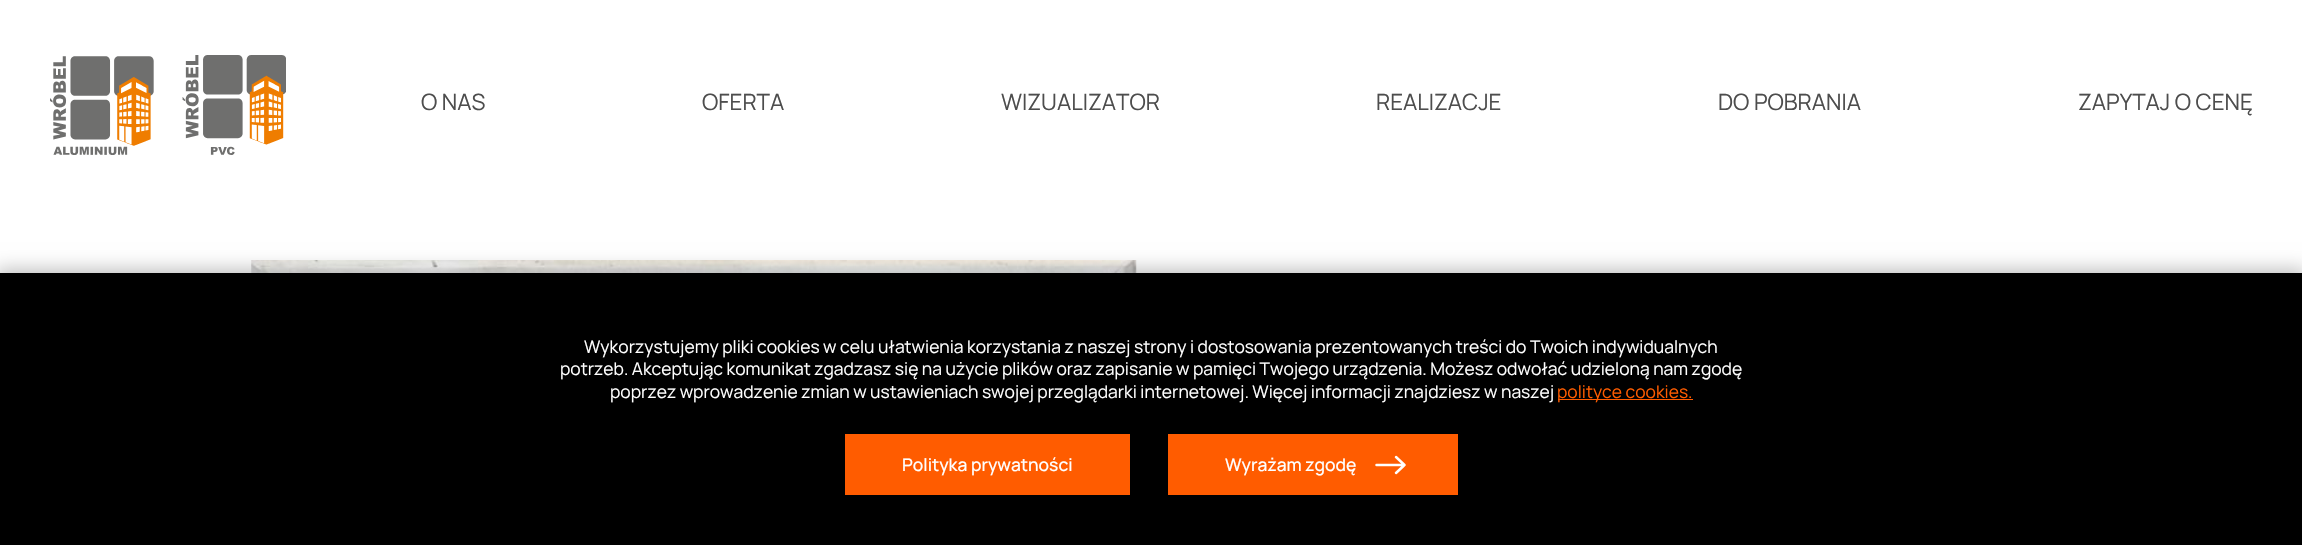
void draw(SkCanvas* canvas) {
	SkPaint fill;
	fill.setAntiAlias(true);
	auto makeFont = [&](const char* family, int weight, float size, bool italic = false) {
		SkFontStyle style(weight, SkFontStyle::kNormal_Width,
			italic ? SkFontStyle::kItalic_Slant : SkFontStyle::kUpright_Slant);
		SkFont result(fontMgr->matchFamilyStyle(family, style), size);
		result.setSubpixel(true);
		return result;
	};
	auto text = [&](const char* s, float x, float y, const SkFont& font) {
		canvas->drawString(s, x, y, font, fill);
	};
	auto box = [&](float l, float t, float r, float b) {
		canvas->drawRect(SkRect::MakeLTRB(l, t, r, b), fill);
	};
	auto picture = [&](const char* path, float l, float t, float r, float b) {
		auto image = SkImages::DeferredFromEncodedData(SkData::MakeFromFileName(path));
		canvas->drawImageRect(image, SkRect::MakeLTRB(l, t, r, b), SkSamplingOptions());
	};
	canvas->clear(0xFFFFFFFF);
	picture("image0.png", 50, 55, 286, 155);
	picture("image1.png", 251, 260, 1137, 273);
	fill.setColor(0x40000000);
	fill.setMaskFilter(SkMaskFilter::MakeBlur(kNormal_SkBlurStyle, 9));
	canvas->drawRect(SkRect::MakeLTRB(-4, 269, 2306, 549), fill);
	fill.setMaskFilter(nullptr);
	fill.setColor(0xFF000000);
	box(0, 273, 2302, 545);
	fill.setColor(0xFFFF5C00);
	box(1558, 399, 1693, 400);
	box(845, 434, 1130, 495);
	box(1168, 434, 1458, 495);
	fill.setStyle(SkPaint::kStroke_Style);
	fill.setStrokeWidth(2.5f);
	fill.setStrokeCap(SkPaint::kRound_Cap);
	fill.setStrokeJoin(SkPaint::kRound_Join);
	fill.setColor(0xFFFFFFFF);
	canvas->drawPath(SkPathBuilder().moveTo(1376.5f, 465).lineTo(1404.5f, 465).moveTo(1404.5f, 465).lineTo(1396, 457).moveTo(1404.5f, 465).lineTo(1396, 473).detach(), fill);
	auto font1 = makeFont("Manrope", 400, 22.5f);
	fill.setStyle(SkPaint::kFill_Style);
	fill.setColor(0xFF4D4D4D);
	text("O NAS", 421, 110, font1);
	text("OFERTA", 702, 110, font1);
	text("WIZUALIZATOR", 1001, 110, font1);
	text("REALIZACJE", 1376, 110, font1);
	text("DO POBRANIA", 1718, 110, font1);
	text("ZAPYTAJ O CENĘ", 2078, 110, font1);
	auto font2 = makeFont("Manrope", 400, 17.5f);
	fill.setColor(0xFFFFFFFF);
	text("Wykorzystujemy pliki cookies w celu ułatwienia korzystania z naszej strony i dostosowania prezentowanych treści do Twoich indywidualnych", 584, 353, font2);
	text("potrzeb. Akceptując komunikat zgadzasz się na użycie plików oraz zapisanie w pamięci Twojego urządzenia. Możesz odwołać udzieloną nam zgodę", 560, 375, font2);
	text("poprzez wprowadzenie zmian w ustawieniach swojej przeglądarki internetowej. Więcej informacji znajdziesz w naszej", 610, 398, font2);
	fill.setColor(0xFFFF5C00);
	text("polityce cookies.", 1557, 398, font2);
	auto font3 = makeFont("Manrope", 500, 17.5f);
	fill.setColor(0xFFFFFFFF);
	text("Polityka prywatności", 902, 471, font3);
	text("Wyrażam zgodę", 1225, 471, font3);
}
